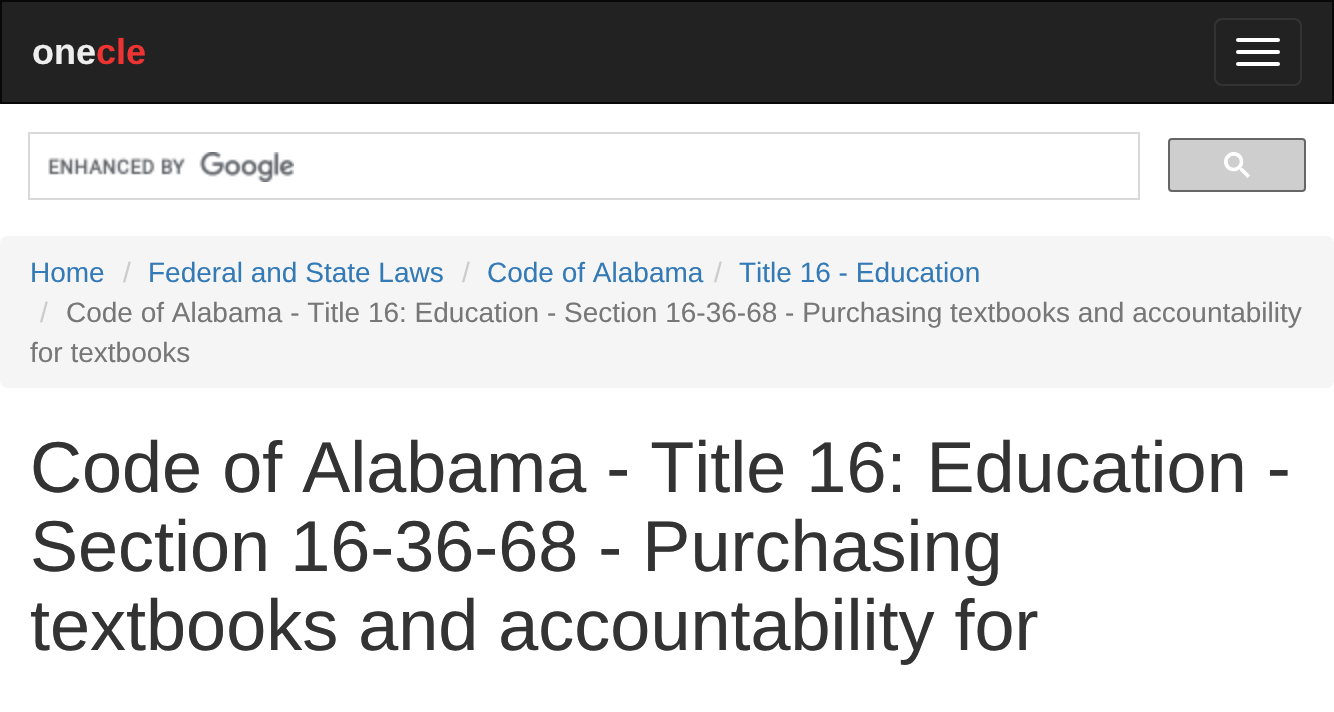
void draw(SkCanvas* canvas) {
	SkPaint fill;
	fill.setAntiAlias(true);
	auto makeFont = [&](const char* family, int weight, float size, bool italic = false) {
		SkFontStyle style(weight, SkFontStyle::kNormal_Width,
			italic ? SkFontStyle::kItalic_Slant : SkFontStyle::kUpright_Slant);
		SkFont result(fontMgr->matchFamilyStyle(family, style), size);
		result.setSubpixel(true);
		return result;
	};
	auto text = [&](const char* s, float x, float y, const SkFont& font) {
		canvas->drawString(s, x, y, font, fill);
	};
	auto roundBox = [&](float l, float t, float r, float b, float radius) {
		canvas->drawRoundRect(SkRect::MakeLTRB(l, t, r, b), radius, radius, fill);
	};
	auto picture = [&](const char* path, float l, float t, float r, float b) {
		auto image = SkImages::DeferredFromEncodedData(SkData::MakeFromFileName(path));
		canvas->drawImageRect(image, SkRect::MakeLTRB(l, t, r, b), SkSamplingOptions());
	};
	canvas->clear(0xFFFFFFFF);
	fill.setColor(0xFF222222);
	canvas->drawRect(SkRect::MakeLTRB(1, 1, 1333, 103), fill);
	fill.setStyle(SkPaint::kStroke_Style);
	fill.setStrokeWidth(2);
	fill.setColor(0xFF080808);
	canvas->drawRect(SkRect::MakeLTRB(1, 1, 1333, 103), fill);
	fill.setColor(0xFF333333);
	canvas->drawRoundRect(SkRect::MakeLTRB(1215, 19, 1301, 85), 7, 7, fill);
	fill.setStyle(SkPaint::kFill_Style);
	fill.setColor(0xFFFFFFFF);
	roundBox(1236, 38, 1280, 42, 2);
	roundBox(1236, 50, 1280, 54, 2);
	roundBox(1236, 62, 1280, 66, 2);
	fill.setStyle(SkPaint::kStroke_Style);
	fill.setColor(0xFFD9D9D9);
	canvas->drawRect(SkRect::MakeLTRB(29, 133, 1139, 199), fill);
	picture("image0.png", 48, 152, 294, 182);
	fill.setStyle(SkPaint::kFill_Style);
	fill.setColor(0xFFCECECE);
	canvas->drawRoundRect(SkRect::MakeLTRB(1169, 139, 1305, 191), 3, 3, fill);
	fill.setStyle(SkPaint::kStroke_Style);
	fill.setColor(0xFF666666);
	canvas->drawRoundRect(SkRect::MakeLTRB(1169, 139, 1305, 191), 3, 3, fill);
	picture("image1.png", 1224, 152, 1250, 178);
	fill.setStyle(SkPaint::kFill_Style);
	fill.setColor(0xFFF5F5F5);
	roundBox(0, 236, 1334, 388, 8);
	auto font1 = makeFont("Liberation Sans", 700, 36);
	fill.setColor(0xFFEEEEEE);
	text("one", 32, 64, font1);
	fill.setColor(0xFFEE3333);
	text("cle", 96, 64, font1);
	auto font2 = makeFont("Liberation Sans", 400, 28);
	fill.setColor(0xFF337AB7);
	text("Home", 30, 282, font2);
	fill.setColor(0xFFCCCCCC);
	text("/", 123, 282, font2);
	fill.setColor(0xFF337AB7);
	text("Federal and State Laws", 148, 282, font2);
	fill.setColor(0xFFCCCCCC);
	text("/", 462, 282, font2);
	fill.setColor(0xFF337AB7);
	text("Code of Alabama", 487, 282, font2);
	fill.setColor(0xFFCCCCCC);
	text("/", 714, 282, font2);
	fill.setColor(0xFF337AB7);
	text("Title 16 - Education", 739, 282, font2);
	fill.setColor(0xFFCCCCCC);
	text("/", 40, 322, font2);
	fill.setColor(0xFF777777);
	text("Code of Alabama - Title 16: Education - Section 16-36-68 - Purchasing textbooks and accountability", 66, 322, font2);
	text("for textbooks", 30, 362, font2);
	auto font3 = makeFont("Liberation Sans", 400, 72);
	fill.setColor(0xFF333333);
	text("Code of Alabama - Title 16: Education -", 30, 492, font3);
	text("Section 16-36-68 - Purchasing", 30, 571, font3);
	text("textbooks and accountability for", 30, 650, font3);
}
